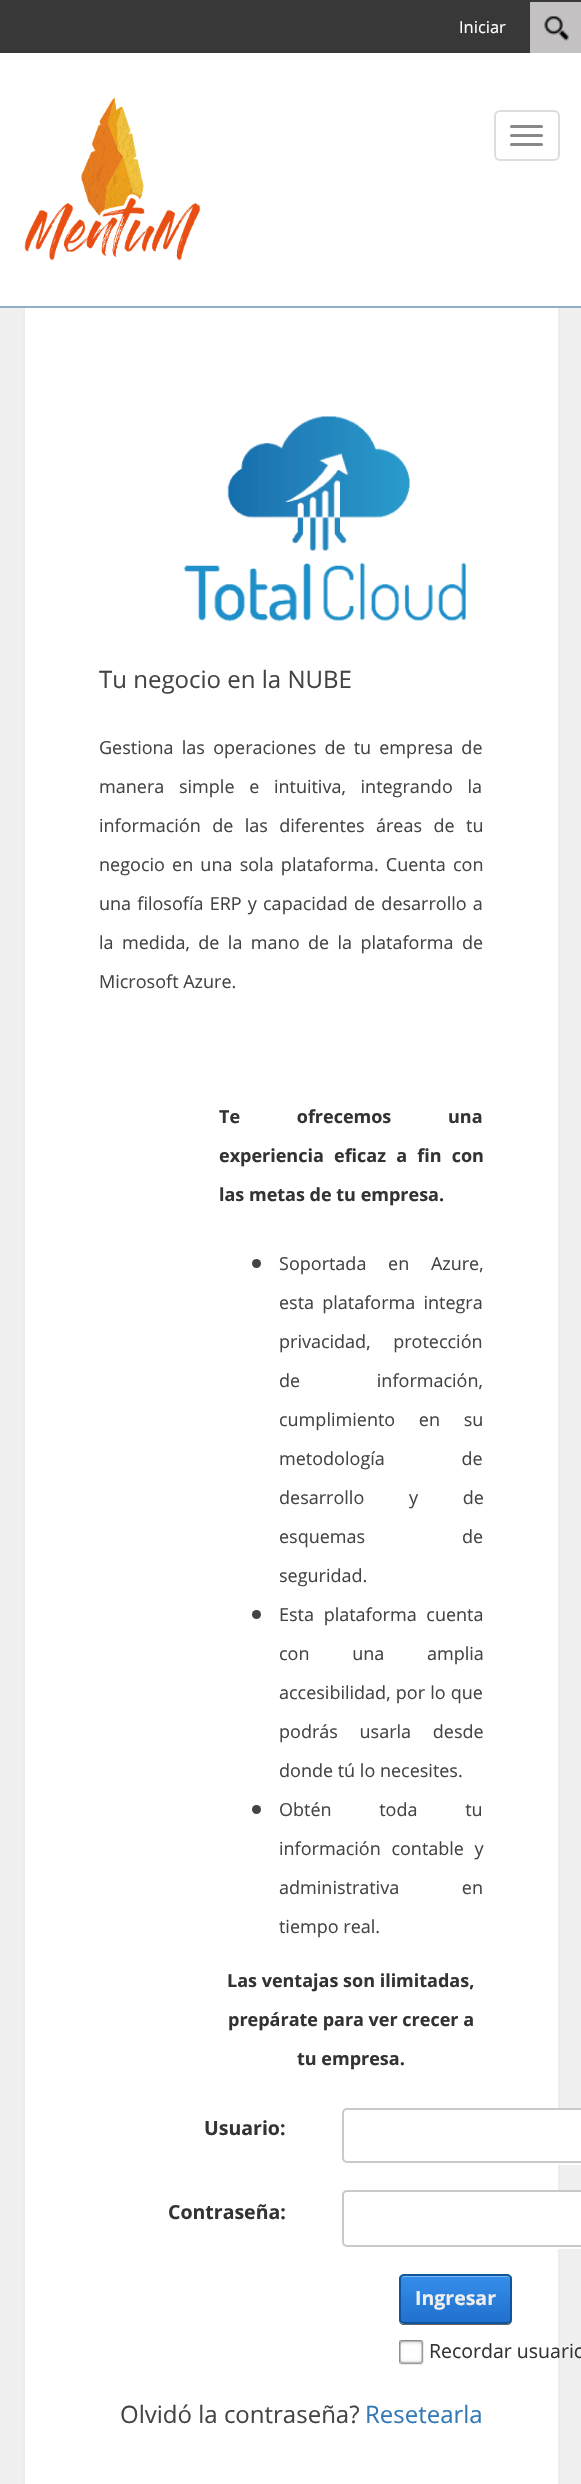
void draw(SkCanvas* canvas) {
	SkPaint fill;
	fill.setAntiAlias(true);
	auto makeFont = [&](const char* family, int weight, float size, bool italic = false) {
		SkFontStyle style(weight, SkFontStyle::kNormal_Width,
			italic ? SkFontStyle::kItalic_Slant : SkFontStyle::kUpright_Slant);
		SkFont result(fontMgr->matchFamilyStyle(family, style), size);
		result.setSubpixel(true);
		return result;
	};
	auto text = [&](const char* s, float x, float y, const SkFont& font) {
		canvas->drawString(s, x, y, font, fill);
	};
	auto spacedText = [&](const char* s, float x, float y, const SkFont& font, const SkPaint& ink, float letter, float word) {
		std::vector<SkGlyphID> glyphs(font.countText(s, strlen(s), SkTextEncoding::kUTF8));
		std::vector<float> xs(glyphs.size());
		font.textToGlyphs(s, strlen(s), SkTextEncoding::kUTF8, glyphs);
		font.getXPos(glyphs, xs, x);
		float extra = 0;
		for (size_t i = 0; i < glyphs.size(); i++) {
			xs[i] += extra;
			extra += letter + word * (glyphs[i] == font.unicharToGlyph(' '));
		}
		canvas->drawTextBlob(SkTextBlob::MakeFromPosHGlyphs(glyphs, xs, y, font), 0, 0, ink);
	};
	auto box = [&](float l, float t, float r, float b) {
		canvas->drawRect(SkRect::MakeLTRB(l, t, r, b), fill);
	};
	auto roundBox = [&](float l, float t, float r, float b, float radius) {
		canvas->drawRoundRect(SkRect::MakeLTRB(l, t, r, b), radius, radius, fill);
	};
	auto picture = [&](const char* path, float l, float t, float r, float b) {
		auto image = SkImages::DeferredFromEncodedData(SkData::MakeFromFileName(path));
		canvas->drawImageRect(image, SkRect::MakeLTRB(l, t, r, b), SkSamplingOptions());
	};
	canvas->clear(0xFFF0F0F0);
	fill.setColor(0xFF383838);
	box(0, 0, 581, 53);
	fill.setColor(0xFFC3C1C1);
	box(530, 2, 581, 53);
	picture("image0.png", 544, 16, 569, 41);
	fill.setColor(0xFFFFFFFF);
	box(0, 53, 581, 306);
	fill.setColor(0xFF91AFCA);
	box(0, 306, 581, 308);
	picture("image1.png", 24, 98, 201, 261);
	fill.setStyle(SkPaint::kStroke_Style);
	fill.setStrokeWidth(2);
	fill.setColor(0xFFDDDDDD);
	canvas->drawRoundRect(SkRect::MakeLTRB(495, 111, 559, 160), 5, 5, fill);
	fill.setStyle(SkPaint::kFill_Style);
	fill.setColor(0xFF888888);
	roundBox(510, 125, 543, 128, 1.5f);
	roundBox(510, 134, 543, 137, 1.5f);
	roundBox(510, 143, 543, 146, 1.5f);
	fill.setColor(0xFFFFFFFF);
	box(25, 308, 558, 2484);
	fill.setColor(0xFFECECEC);
	box(558, 308, 560, 2484);
	box(23, 308, 25, 2484);
	picture("image2.png", 184, 416, 466, 622);
	fill.setColor(0xFF444444);
	canvas->drawCircle(256.5f, 1263.5f, 4.5f, fill);
	canvas->drawCircle(256.5f, 1614.5f, 4.5f, fill);
	canvas->drawCircle(256.5f, 1809.5f, 4.5f, fill);
	fill.setColor(0xCCFFFFFF);
	canvas->drawPath(SkPathBuilder().moveTo(342, 2158).lineTo(342, 2160).cubicTo(342, 2163, 344, 2165, 347, 2165).lineTo(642, 2165).cubicTo(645, 2165, 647, 2163, 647, 2160).lineTo(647, 2114).lineTo(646, 2112).lineTo(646, 2158).cubicTo(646, 2161, 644, 2163, 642, 2163).lineTo(346, 2163).cubicTo(344, 2163, 342, 2161, 342, 2158).close().detach(), fill);
	fill.setColor(0xFFFFFFFF);
	canvas->drawRoundRect(SkRect::MakeLTRB(343, 2109, 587, 2162), 4, 4, fill);
	fill.setStyle(SkPaint::kStroke_Style);
	fill.setColor(0xFFC9C9C9);
	canvas->drawRoundRect(SkRect::MakeLTRB(343, 2109, 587, 2162), 4, 4, fill);
	fill.setStyle(SkPaint::kFill_Style);
	fill.setColor(0xCCFFFFFF);
	canvas->drawPath(SkPathBuilder().moveTo(342, 2242).lineTo(342, 2244).cubicTo(342, 2247, 344, 2249, 347, 2249).lineTo(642, 2249).cubicTo(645, 2249, 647, 2247, 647, 2244).lineTo(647, 2197).lineTo(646, 2195).lineTo(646, 2242).cubicTo(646, 2245, 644, 2247, 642, 2247).lineTo(346, 2247).cubicTo(344, 2247, 342, 2245, 342, 2242).close().detach(), fill);
	fill.setColor(0xFFFFFFFF);
	canvas->drawRoundRect(SkRect::MakeLTRB(343, 2191, 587, 2246), 4, 4, fill);
	fill.setStyle(SkPaint::kStroke_Style);
	fill.setColor(0xFFC9C9C9);
	canvas->drawRoundRect(SkRect::MakeLTRB(343, 2191, 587, 2246), 4, 4, fill);
	fill.setStyle(SkPaint::kFill_Style);
	fill.setColor(0xFF666666);
	canvas->drawPath(SkPathBuilder().moveTo(399, 2319).lineTo(399, 2320).cubicTo(399, 2323, 401, 2325, 404, 2325).lineTo(507, 2325).cubicTo(510, 2325, 512, 2323, 512, 2320).lineTo(512, 2281).lineTo(512, 2279).lineTo(512, 2319).cubicTo(512, 2321, 509, 2324, 507, 2324).lineTo(404, 2324).cubicTo(401, 2324, 399, 2321, 399, 2319).close().detach(), fill);
	canvas->save();
	canvas->clipPath(SkPathBuilder().moveTo(404, 2274).lineTo(507, 2274).cubicTo(510, 2274, 512, 2276, 512, 2279).lineTo(512, 2319).cubicTo(512, 2322, 510, 2324, 507, 2324).lineTo(404, 2324).cubicTo(401, 2324, 399, 2322, 399, 2319).lineTo(399, 2279).cubicTo(399, 2276, 401, 2274, 404, 2274).close().detach(), true);
	{
		const SkColor colors[] = {0xFF358EEA, 0xFF2170CD};
		const float stops[] = {0, 1};
		const SkPoint ends[] = {{455, 2276}, {455, 2322}};
		fill.setShader(SkGradientShader::MakeLinear(ends, colors, stops, 2, SkTileMode::kClamp));
		fill.setAlpha(255);
	}
	box(399, 2276, 512, 2322);
	canvas->restore();
	fill.setShader(nullptr);
	fill.setColor(0xFF86BBF2);
	canvas->drawPath(SkPathBuilder().moveTo(404, 2277).lineTo(507, 2277).cubicTo(509, 2277, 510, 2278, 510, 2280).lineTo(510, 2279).cubicTo(510, 2277, 509, 2276, 507, 2276).lineTo(404, 2276).cubicTo(403, 2276, 402, 2277, 401, 2278).close().detach(), fill);
	fill.setStyle(SkPaint::kStroke_Style);
	fill.setColor(0xFF0D569E);
	canvas->drawRoundRect(SkRect::MakeLTRB(400, 2275, 511, 2323), 4, 4, fill);
	picture("image3.png", 399, 2340, 424, 2365);
	auto font1 = makeFont("Open Sans", 400, 16.5f);
	fill.setStyle(SkPaint::kFill_Style);
	fill.setColor(0xFFFFFFFF);
	text("Iniciar", 459, 33, font1);
	auto font2 = makeFont("Open Sans", 400, 24);
	fill.setColor(0xFF444444);
	text("Tu negocio en la NUBE", 99, 688, font2);
	auto font3 = makeFont("Open Sans", 400, 18);
	spacedText("Gestiona las operaciones de tu empresa de", 99, 754, font3, fill, 0, 3.5f);
	spacedText("manera simple e intuitiva, integrando la", 99, 793, font3, fill, 0, 10);
	spacedText("información de las diferentes áreas de tu", 99, 832, font3, fill, 0, 6.75f);
	spacedText("negocio en una sola plataforma. Cuenta con", 99, 871, font3, fill, 0, 2.5f);
	spacedText("una filosofía ERP y capacidad de desarrollo a", 99, 910, font3, fill, 0, 1.5f);
	spacedText("la medida, de la mano de la plataforma de", 99, 949, font3, fill, 0, 3.75f);
	text("Microsoft Azure.", 99, 988, font3);
	auto font4 = makeFont("Open Sans", 700, 18);
	fill.setColor(0xFF333333);
	spacedText("Te ofrecemos una", 219, 1123, font4, fill, 0, 52);
	spacedText("experiencia eficaz a fin con", 219, 1162, font4, fill, 0, 5.5f);
	text("las metas de tu empresa.", 219, 1201, font4);
	fill.setColor(0xFF444444);
	spacedText("Soportada en Azure,", 279, 1270, font3, fill, 0, 17);
	spacedText("esta plataforma integra", 279, 1309, font3, fill, 0, 3.5f);
	spacedText("privacidad, protección", 279, 1348, font3, fill, 0, 18);
	spacedText("de información,", 279, 1387, font3, fill, 0, 72);
	spacedText("cumplimiento en su", 279, 1426, font3, fill, 0, 19);
	spacedText("metodología de", 279, 1465, font3, fill, 0, 72);
	spacedText("desarrollo y de", 279, 1504, font3, fill, 0, 40);
	spacedText("esquemas de", 279, 1543, font3, fill, 0, 92);
	text("seguridad.", 279, 1582, font3);
	spacedText("Esta plataforma cuenta", 279, 1621, font3, fill, 0, 5);
	spacedText("con una amplia", 279, 1660, font3, fill, 0, 38);
	spacedText("accesibilidad, por lo que", 279, 1699, font3, fill, 0, 0.5f);
	spacedText("podrás usarla desde", 279, 1738, font3, fill, 0, 17);
	text("donde tú lo necesites.", 279, 1777, font3);
	spacedText("Obtén toda tu", 279, 1816, font3, fill, 0, 43);
	spacedText("información contable y", 279, 1855, font3, fill, 0, 6);
	spacedText("administrativa en", 279, 1894, font3, fill, 0, 58);
	text("tiempo real.", 279, 1933, font3);
	fill.setColor(0xFF333333);
	text("Las ventajas son ilimitadas,", 227, 1987, font4);
	text("prepárate para ver crecer a", 228, 2026, font4);
	text("tu empresa.", 297, 2065, font4);
	auto font5 = makeFont("Open Sans", 700, 19.5f);
	text("Usuario:", 204, 2135, font5);
	text("Contraseña:", 168, 2219, font5);
	fill.setColor(0xFFEFEFEF);
	text("Ingresar", 415, 2305, font5);
	auto font6 = makeFont("Open Sans", 400, 19.5f);
	fill.setColor(0xFF333333);
	text("Recordar usuario", 429, 2358, font6);
	fill.setColor(0xFF444444);
	text("Olvidó la contraseña?", 120, 2423, font2);
	fill.setColor(0xFF337AB7);
	text("Resetearla", 365, 2423, font2);
}
